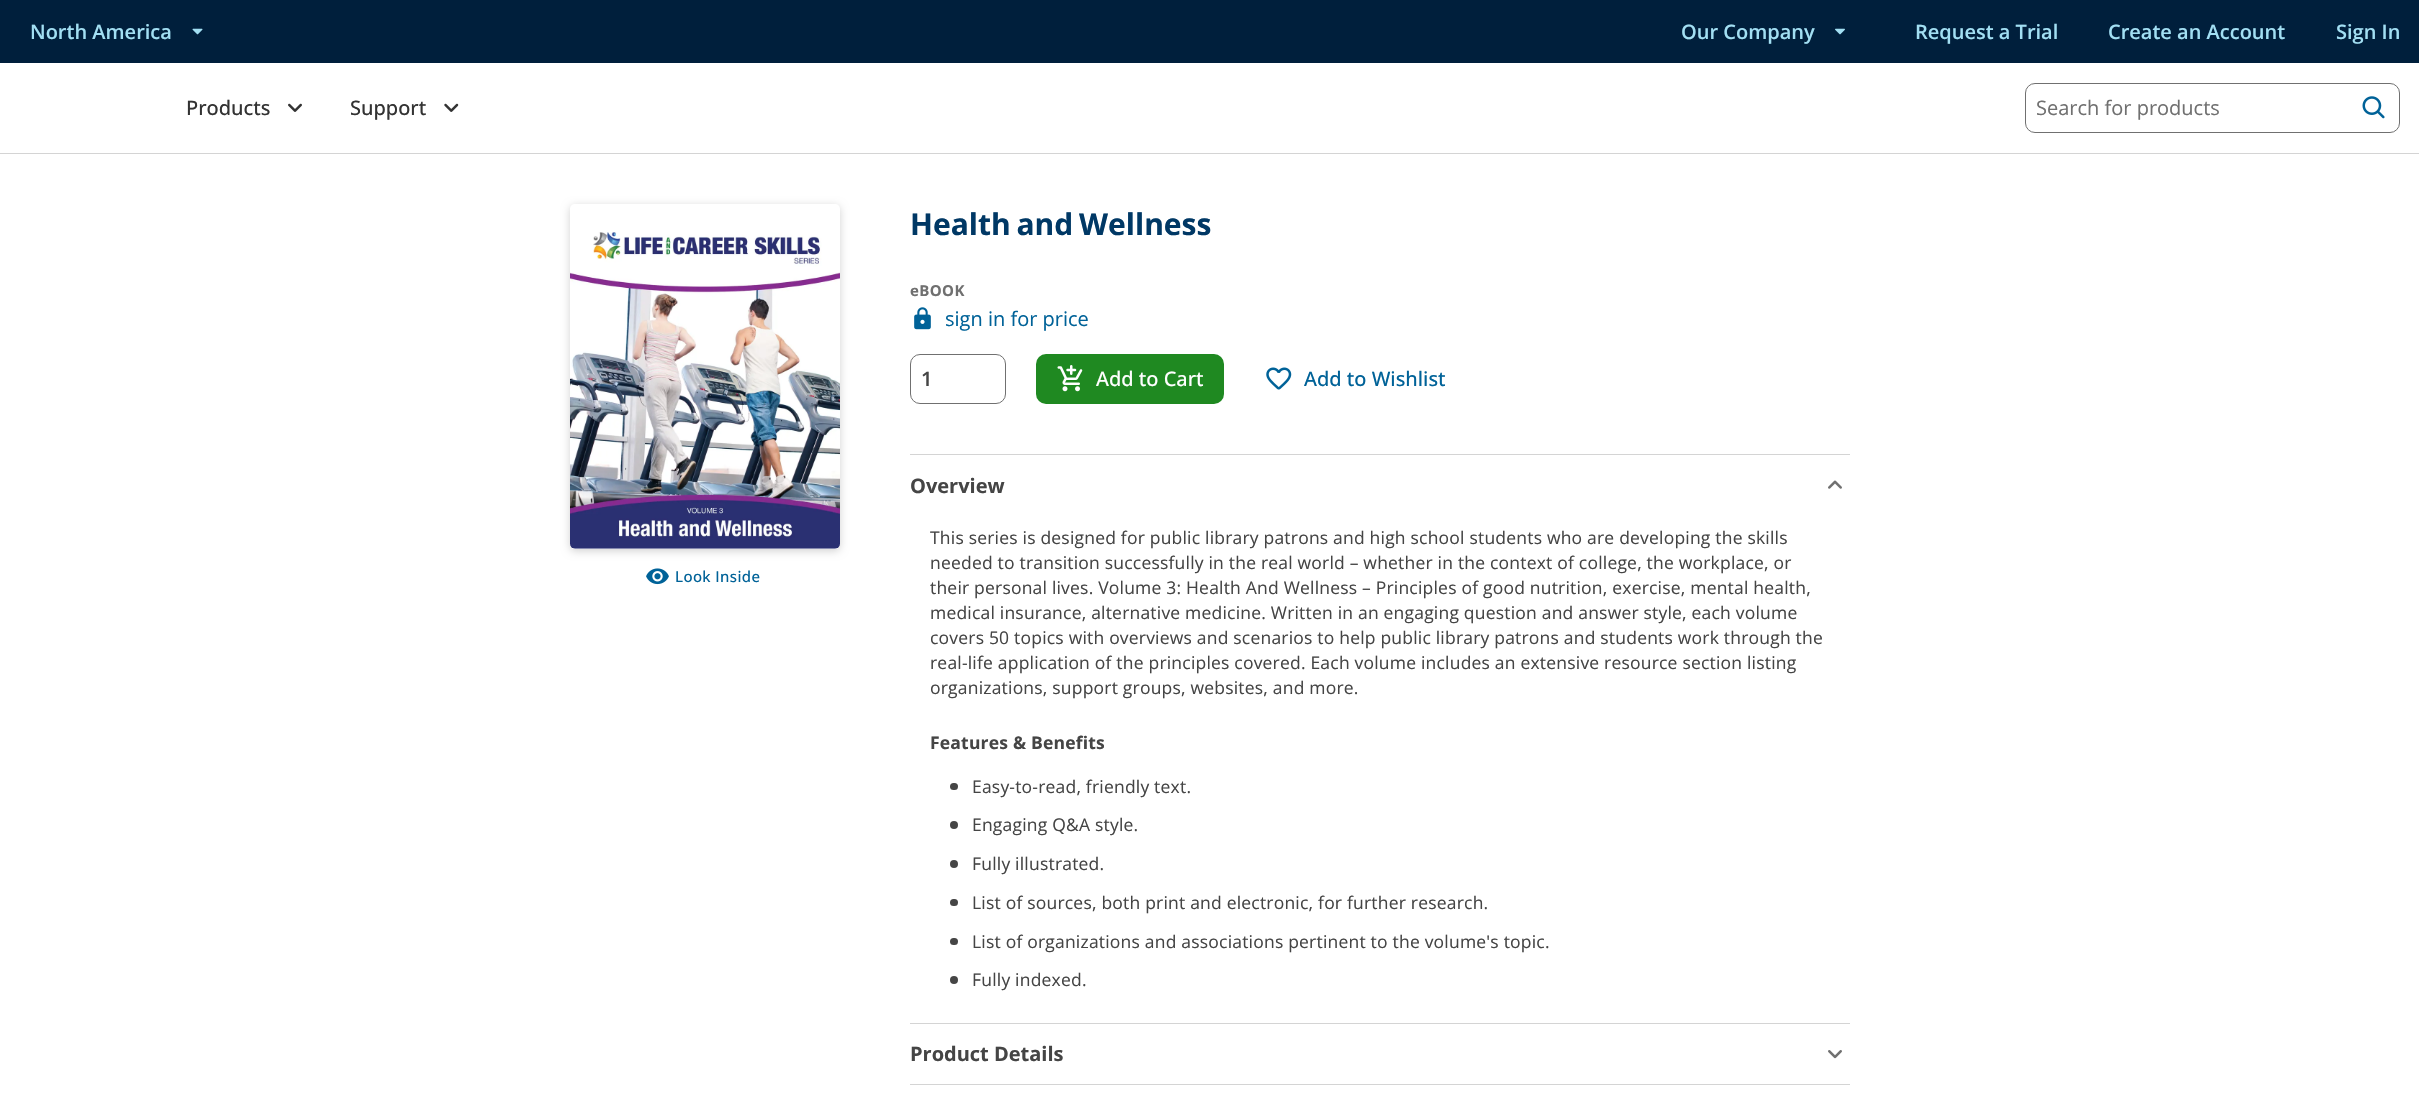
void draw(SkCanvas* canvas) {
	SkPaint fill;
	fill.setAntiAlias(true);
	auto makeFont = [&](const char* family, int weight, float size, bool italic = false) {
		SkFontStyle style(weight, SkFontStyle::kNormal_Width,
			italic ? SkFontStyle::kItalic_Slant : SkFontStyle::kUpright_Slant);
		SkFont result(fontMgr->matchFamilyStyle(family, style), size);
		result.setSubpixel(true);
		return result;
	};
	auto text = [&](const char* s, float x, float y, const SkFont& font) {
		canvas->drawString(s, x, y, font, fill);
	};
	auto spacedText = [&](const char* s, float x, float y, const SkFont& font, const SkPaint& ink, float letter, float word) {
		std::vector<SkGlyphID> glyphs(font.countText(s, strlen(s), SkTextEncoding::kUTF8));
		std::vector<float> xs(glyphs.size());
		font.textToGlyphs(s, strlen(s), SkTextEncoding::kUTF8, glyphs);
		font.getXPos(glyphs, xs, x);
		float extra = 0;
		for (size_t i = 0; i < glyphs.size(); i++) {
			xs[i] += extra;
			extra += letter + word * (glyphs[i] == font.unicharToGlyph(' '));
		}
		canvas->drawTextBlob(SkTextBlob::MakeFromPosHGlyphs(glyphs, xs, y, font), 0, 0, ink);
	};
	auto box = [&](float l, float t, float r, float b) {
		canvas->drawRect(SkRect::MakeLTRB(l, t, r, b), fill);
	};
	auto roundBox = [&](float l, float t, float r, float b, float radius) {
		canvas->drawRoundRect(SkRect::MakeLTRB(l, t, r, b), radius, radius, fill);
	};
	auto picture = [&](const char* path, float l, float t, float r, float b) {
		auto image = SkImages::DeferredFromEncodedData(SkData::MakeFromFileName(path));
		canvas->drawImageRect(image, SkRect::MakeLTRB(l, t, r, b), SkSamplingOptions());
	};
	canvas->clear(0xFFFFFFFF);
	fill.setColor(0xFF001F3C);
	box(0, 0, 2419, 63);
	picture("image0.png", 192, 28, 203, 35);
	picture("image1.png", 1835, 28, 1845, 35);
	fill.setColor(0xFFD4D4D4);
	box(0, 153, 2419, 154);
	picture("image2.png", 288, 103, 302, 112);
	picture("image3.png", 444, 103, 459, 112);
	fill.setStyle(SkPaint::kStroke_Style);
	fill.setStrokeWidth(1);
	fill.setColor(0xFF707070);
	canvas->drawRoundRect(SkRect::MakeLTRB(2025.5f, 83.5f, 2399.5f, 132.5f), 9.5f, 9.5f, fill);
	picture("image4.png", 2362, 96, 2385, 119);
	canvas->save();
	canvas->clipPath(SkPathBuilder(SkPathFillType::kEvenOdd).moveTo(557, 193).lineTo(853, 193).lineTo(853, 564).lineTo(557, 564).close().moveTo(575, 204).lineTo(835, 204).cubicTo(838, 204, 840, 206, 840, 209).lineTo(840, 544).cubicTo(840, 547, 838, 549, 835, 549).lineTo(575, 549).cubicTo(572, 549, 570, 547, 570, 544).lineTo(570, 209).cubicTo(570, 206, 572, 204, 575, 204).close().detach(), true);
	fill.setStyle(SkPaint::kFill_Style);
	fill.setColor(0x2E000000);
	fill.setMaskFilter(SkMaskFilter::MakeBlur(kNormal_SkBlurStyle, 4));
	canvas->drawRoundRect(SkRect::MakeLTRB(570, 206, 840, 551), 5, 5, fill);
	fill.setMaskFilter(nullptr);
	canvas->restore();
	picture("image5.png", 570, 232, 840, 549);
	picture("image6.png", 646, 568, 669, 585);
	picture("image7.png", 914, 307, 931, 330);
	fill.setStyle(SkPaint::kStroke_Style);
	fill.setColor(0xFF707070);
	canvas->drawRoundRect(SkRect::MakeLTRB(910.5f, 354.5f, 1005.5f, 403.5f), 9.5f, 9.5f, fill);
	fill.setStyle(SkPaint::kFill_Style);
	fill.setColor(0xFF1F8921);
	roundBox(1036, 354, 1224, 404, 10);
	picture("image8.png", 1057, 365, 1083, 392);
	picture("image9.png", 1266, 367, 1292, 390);
	fill.setColor(0xFFD4D4D4);
	box(910, 454, 1850, 455);
	picture("image10.png", 1828, 480, 1842, 489);
	fill.setColor(0xFF454545);
	roundBox(950, 783, 958, 790, 3.5f);
	canvas->drawCircle(954, 825, 4, fill);
	canvas->drawCircle(954, 864, 4, fill);
	roundBox(950, 899, 958, 906, 3.5f);
	roundBox(950, 938, 958, 945, 3.5f);
	canvas->drawCircle(954, 980, 4, fill);
	fill.setColor(0xFFD4D4D4);
	box(910, 1023, 1850, 1024);
	picture("image11.png", 1828, 1050, 1842, 1059);
	box(910, 1084, 1850, 1085);
	auto font1 = makeFont("Open Sans", 600, 20);
	fill.setColor(0xFFA2DFF3);
	text("North America", 30, 39, font1);
	text("Our Company", 1681, 39, font1);
	text("Request a Trial", 1915, 39, font1);
	text("Create an Account", 2108, 39, font1);
	text("Sign In", 2336, 39, font1);
	auto font2 = makeFont("Open Sans", 500, 20);
	fill.setColor(0xFF333333);
	text("Products", 186, 115, font2);
	text("Support", 350, 115, font2);
	auto font3 = makeFont("Open Sans", 400, 20);
	fill.setColor(0xFF707070);
	text("Search for products", 2036, 115, font3);
	auto font4 = makeFont("Open Sans", 700, 30);
	fill.setColor(0xFF003865);
	spacedText("Health and Wellness", 910, 235, font4, fill, 0, -2);
	auto font5 = makeFont("Open Sans", 500, 15);
	fill.setColor(0xFF006298);
	spacedText("Look Inside", 675, 582, font5, fill, 0.4f, 0);
	auto font6 = makeFont("Open Sans", 700, 15);
	fill.setColor(0xFF707070);
	spacedText("eBOOK", 910, 296, font6, fill, 0.4f, 0);
	fill.setColor(0xFF006298);
	text("sign in for price", 945, 326, font3);
	fill.setColor(0xFF454545);
	text("1", 921, 386, font1);
	fill.setColor(0xFFFFFFFF);
	text("Add to Cart", 1096, 386, font2);
	fill.setColor(0xFF006298);
	text("Add to Wishlist", 1304, 386, font2);
	auto font7 = makeFont("Open Sans", 700, 20);
	fill.setColor(0xFF454545);
	text("Overview", 910, 493, font7);
	auto font8 = makeFont("Open Sans", 400, 17.5f);
	spacedText("This series is designed for public library patrons and high school students who are developing the skills", 930, 544, font8, fill, 0.2f, 0);
	spacedText("needed to transition successfully in the real world – whether in the context of college, the workplace, or", 930, 569, font8, fill, 0.2f, 0);
	spacedText("their personal lives. Volume 3: Health And Wellness – Principles of good nutrition, exercise, mental health,", 930, 594, font8, fill, 0.2f, 0);
	spacedText("medical insurance, alternative medicine. Written in an engaging question and answer style, each volume", 930, 619, font8, fill, 0.2f, 0);
	spacedText("covers 50 topics with overviews and scenarios to help public library patrons and students work through the", 930, 644, font8, fill, 0.2f, 0);
	spacedText("real-life application of the principles covered. Each volume includes an extensive resource section listing", 930, 669, font8, fill, 0.2f, 0);
	spacedText("organizations, support groups, websites, and more.", 930, 694, font8, fill, 0.2f, 0);
	auto font9 = makeFont("Open Sans", 700, 17.5f);
	spacedText("Features & Benefits", 930, 749, font9, fill, 0.2f, 0);
	spacedText("Easy-to-read, friendly text.", 972, 793, font8, fill, 0.2f, 0);
	spacedText("Engaging Q&A style.", 972, 831, font8, fill, 0.2f, 0);
	spacedText("Fully illustrated.", 972, 870, font8, fill, 0.2f, 0);
	spacedText("List of sources, both print and electronic, for further research.", 972, 909, font8, fill, 0.2f, 0);
	spacedText("List of organizations and associations pertinent to the volume's topic.", 972, 948, font8, fill, 0.2f, 0);
	spacedText("Fully indexed.", 972, 986, font8, fill, 0.2f, 0);
	text("Product Details", 910, 1061, font7);
}
